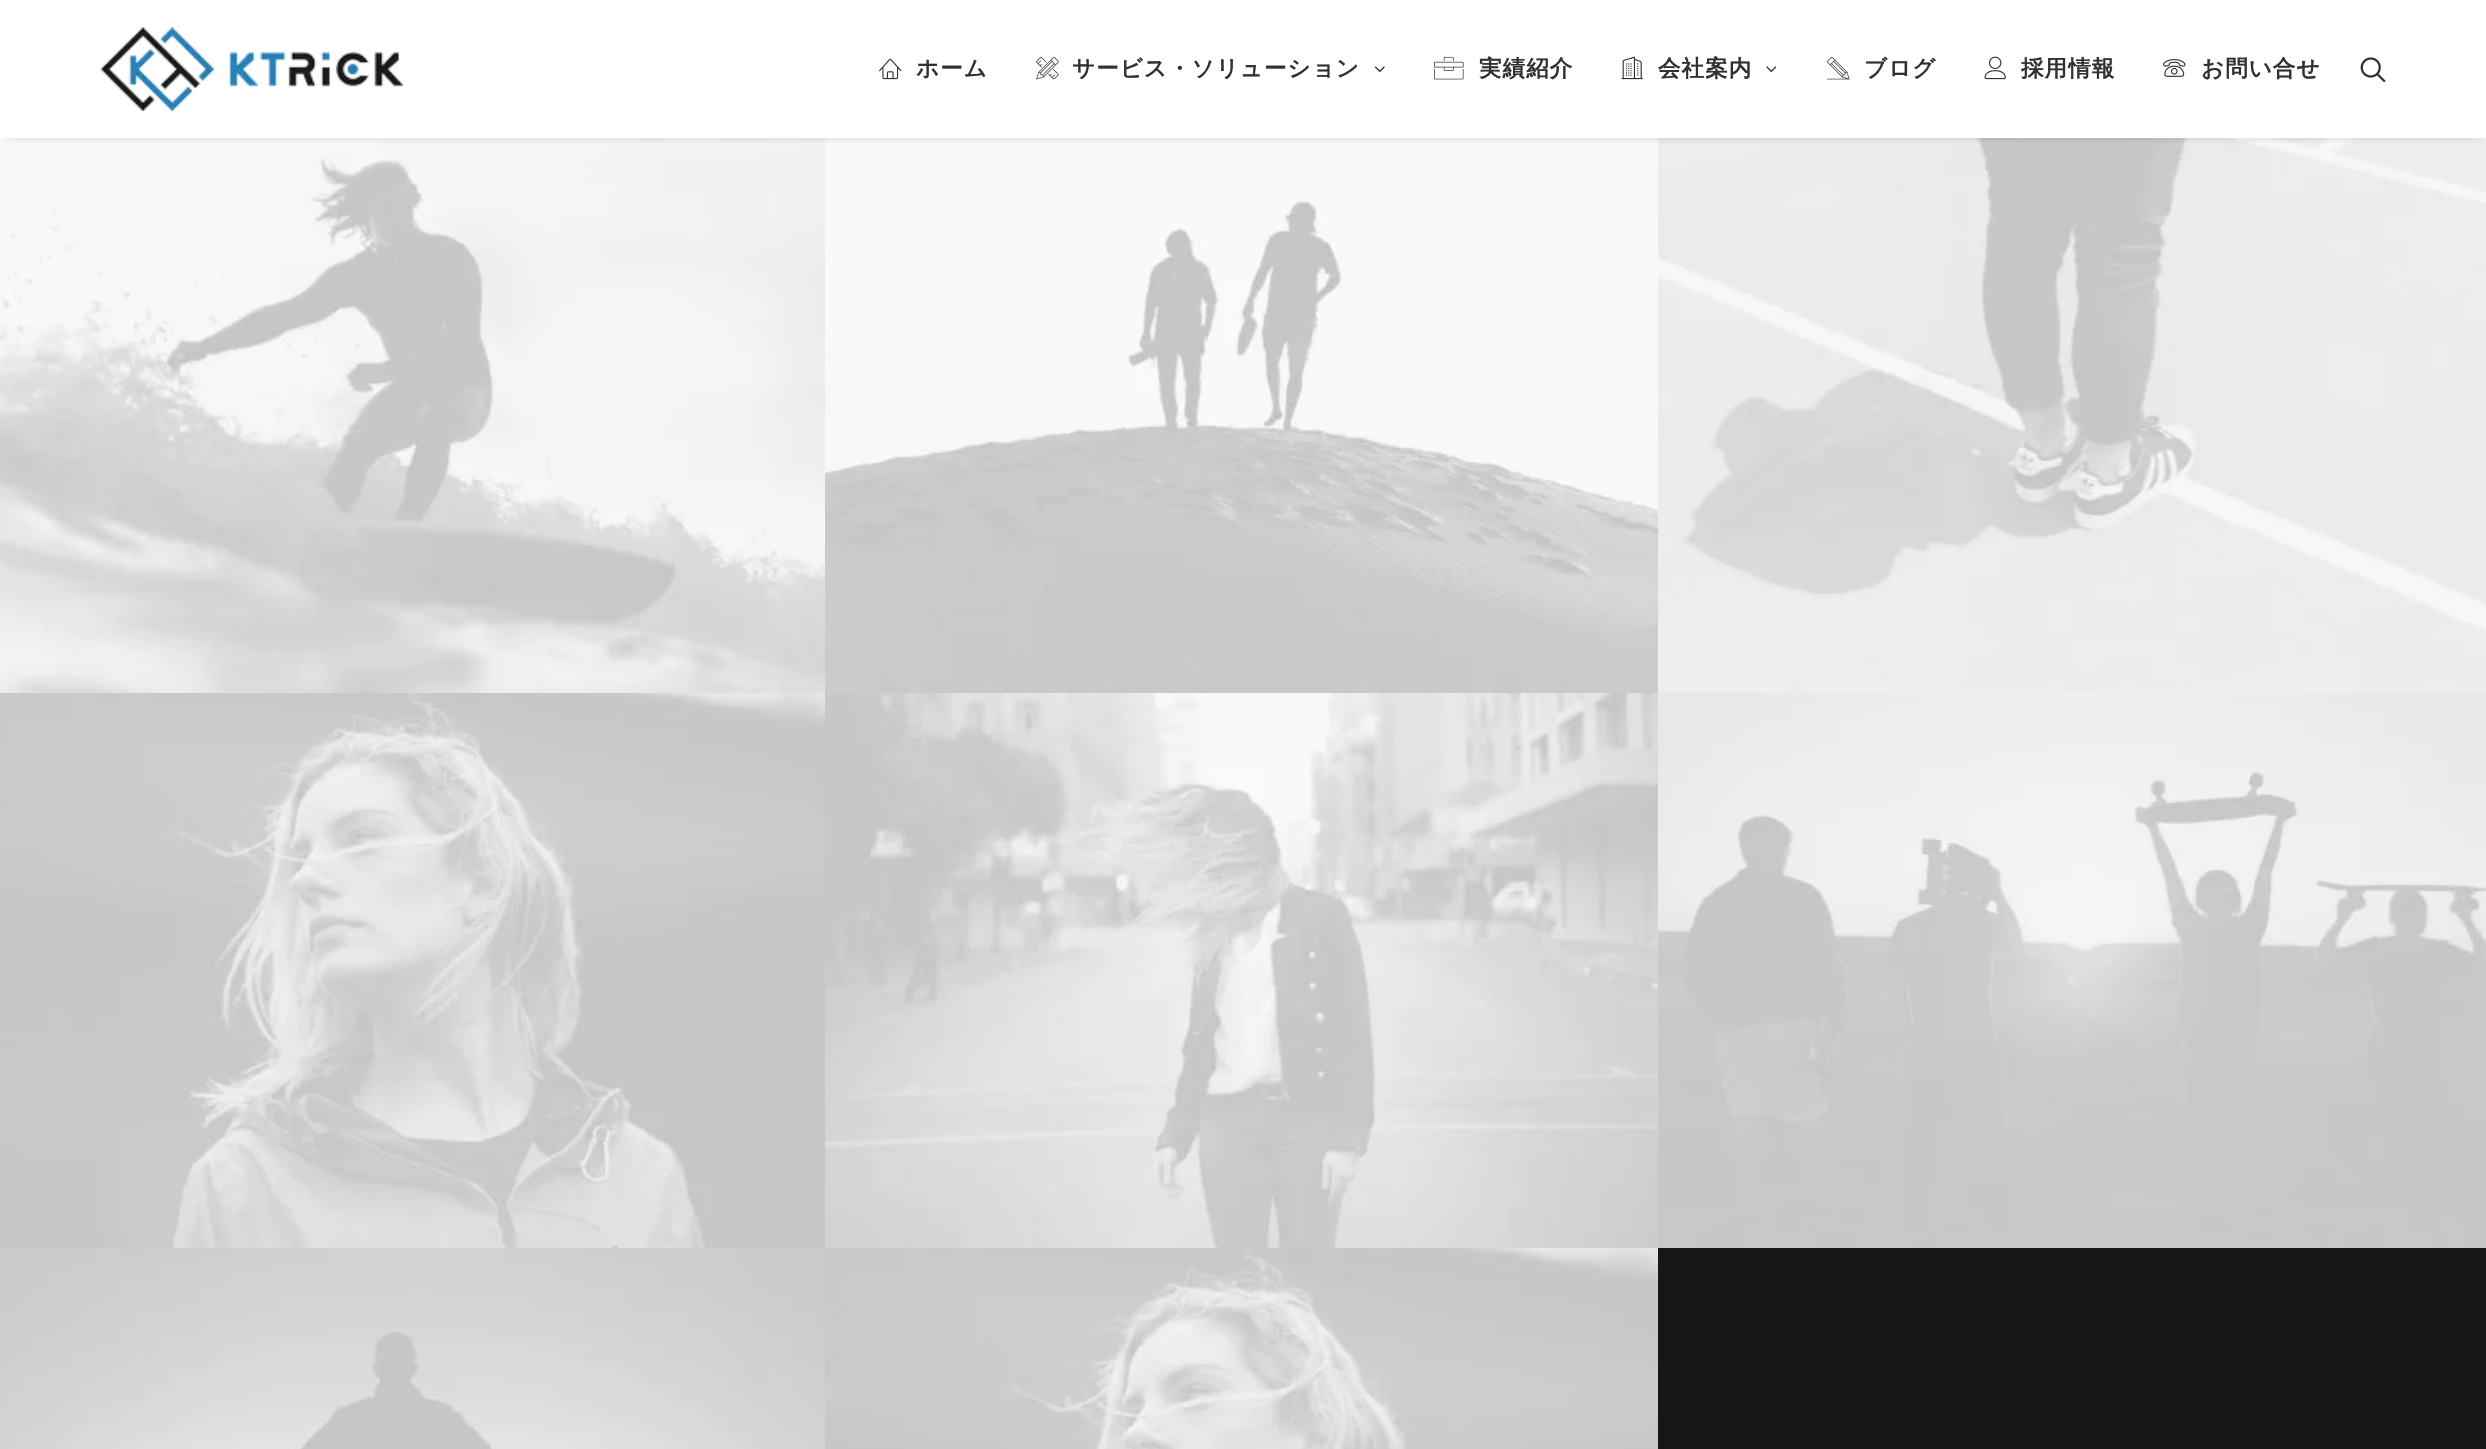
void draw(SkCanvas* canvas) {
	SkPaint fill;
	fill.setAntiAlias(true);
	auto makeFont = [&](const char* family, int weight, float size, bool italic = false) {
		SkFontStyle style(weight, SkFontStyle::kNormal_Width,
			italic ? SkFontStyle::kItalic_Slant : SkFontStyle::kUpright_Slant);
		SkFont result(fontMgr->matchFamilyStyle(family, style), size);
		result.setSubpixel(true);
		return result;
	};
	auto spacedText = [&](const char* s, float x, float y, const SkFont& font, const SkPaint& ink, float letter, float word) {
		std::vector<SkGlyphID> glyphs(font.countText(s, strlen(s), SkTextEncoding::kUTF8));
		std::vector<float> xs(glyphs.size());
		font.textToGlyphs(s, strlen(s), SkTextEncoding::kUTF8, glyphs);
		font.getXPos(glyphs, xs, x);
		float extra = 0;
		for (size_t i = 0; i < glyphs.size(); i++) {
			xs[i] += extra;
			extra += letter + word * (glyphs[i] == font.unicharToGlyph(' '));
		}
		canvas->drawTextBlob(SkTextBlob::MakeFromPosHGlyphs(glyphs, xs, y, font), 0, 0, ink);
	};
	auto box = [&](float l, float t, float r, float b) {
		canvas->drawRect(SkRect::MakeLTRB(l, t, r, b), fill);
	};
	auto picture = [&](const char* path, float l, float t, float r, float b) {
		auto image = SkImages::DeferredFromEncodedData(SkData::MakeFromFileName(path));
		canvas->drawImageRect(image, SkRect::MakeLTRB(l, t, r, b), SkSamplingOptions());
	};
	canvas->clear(0xFFFFFFFF);
	picture("image11.png", 0, 138, 825, 693);
	picture("image12.png", 825, 138, 1658, 693);
	picture("image13.png", 1658, 138, 2486, 693);
	canvas->save();
	canvas->clipRect(SkRect::MakeLTRB(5, 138, 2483, 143));
	fill.setColor(0x99000000);
	fill.setMaskFilter(SkMaskFilter::MakeBlur(kNormal_SkBlurStyle, 7.5f));
	canvas->drawRect(SkRect::MakeLTRB(8, 21, 2480, 129), fill);
	fill.setMaskFilter(nullptr);
	canvas->restore();
	picture("image0.png", 100, 27, 404, 111);
	picture("image1.png", 879, 58, 902, 80);
	picture("image2.png", 1036, 57, 1059, 80);
	picture("image3.png", 1374, 66, 1385, 73);
	picture("image4.png", 1434, 56, 1464, 80);
	picture("image5.png", 1621, 56, 1643, 80);
	picture("image6.png", 1766, 66, 1777, 73);
	picture("image7.png", 1827, 56, 1850, 80);
	picture("image8.png", 1984, 56, 2006, 80);
	picture("image9.png", 2163, 59, 2186, 77);
	picture("image10.png", 2360, 57, 2386, 83);
	fill.setColor(0xFF141618);
	box(1658, 1248, 2486, 1449);
	picture("image14.png", 0, 693, 825, 1248);
	picture("image15.png", 825, 693, 1658, 1248);
	picture("image16.png", 1658, 693, 2486, 1248);
	picture("image17.png", 0, 1248, 825, 1449);
	picture("image18.png", 825, 1248, 1658, 1449);
	auto font1 = makeFont("WenQuanYi Zen Hei", 700, 22.5f);
	fill.setColor(0xFF303133);
	spacedText("ホーム", 916, 76, font1, fill, 1.1f, 0);
	spacedText("サービス・ソリューション", 1072, 76, font1, fill, 1.1f, 0);
	spacedText("実績紹介", 1479, 76, font1, fill, 1.1f, 0);
	spacedText("会社案内", 1658, 76, font1, fill, 1.1f, 0);
	spacedText("ブログ", 1864, 76, font1, fill, 1.1f, 0);
	spacedText("採用情報", 2021, 76, font1, fill, 1.1f, 0);
	spacedText("お問い合せ", 2201, 76, font1, fill, 1.1f, 0);
}
